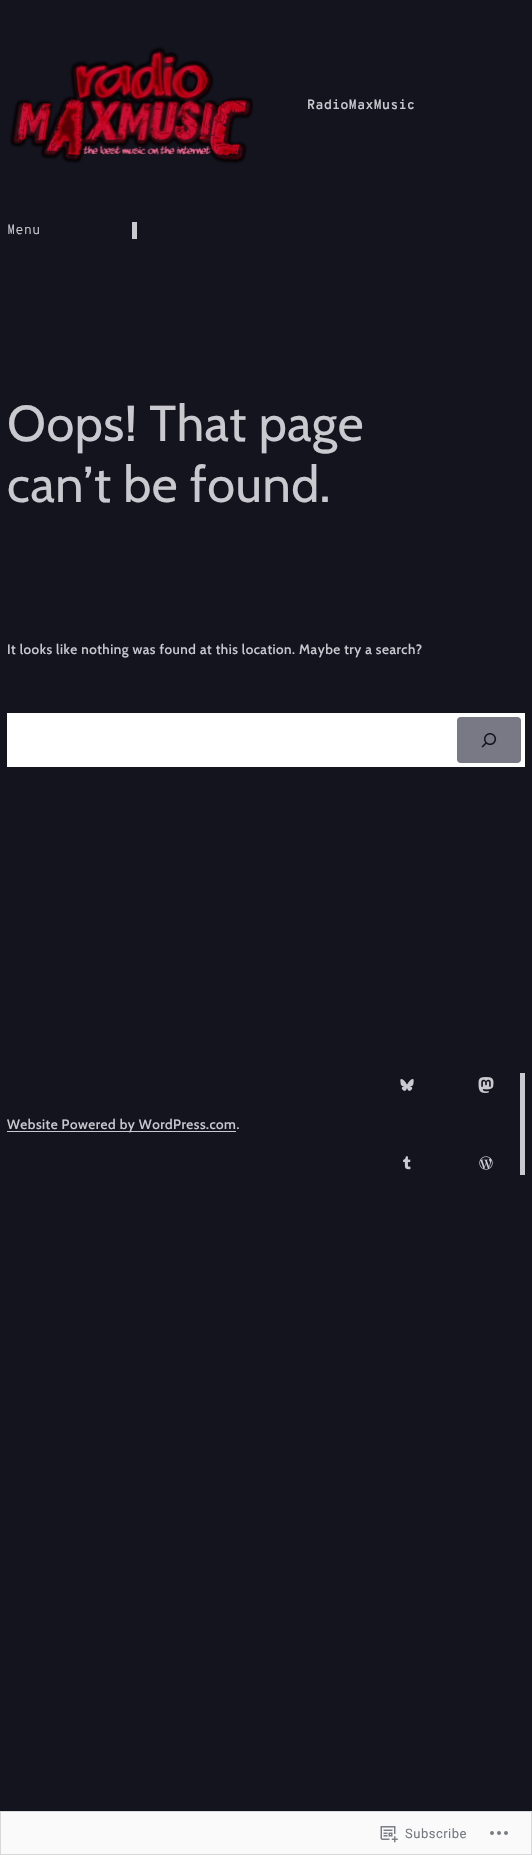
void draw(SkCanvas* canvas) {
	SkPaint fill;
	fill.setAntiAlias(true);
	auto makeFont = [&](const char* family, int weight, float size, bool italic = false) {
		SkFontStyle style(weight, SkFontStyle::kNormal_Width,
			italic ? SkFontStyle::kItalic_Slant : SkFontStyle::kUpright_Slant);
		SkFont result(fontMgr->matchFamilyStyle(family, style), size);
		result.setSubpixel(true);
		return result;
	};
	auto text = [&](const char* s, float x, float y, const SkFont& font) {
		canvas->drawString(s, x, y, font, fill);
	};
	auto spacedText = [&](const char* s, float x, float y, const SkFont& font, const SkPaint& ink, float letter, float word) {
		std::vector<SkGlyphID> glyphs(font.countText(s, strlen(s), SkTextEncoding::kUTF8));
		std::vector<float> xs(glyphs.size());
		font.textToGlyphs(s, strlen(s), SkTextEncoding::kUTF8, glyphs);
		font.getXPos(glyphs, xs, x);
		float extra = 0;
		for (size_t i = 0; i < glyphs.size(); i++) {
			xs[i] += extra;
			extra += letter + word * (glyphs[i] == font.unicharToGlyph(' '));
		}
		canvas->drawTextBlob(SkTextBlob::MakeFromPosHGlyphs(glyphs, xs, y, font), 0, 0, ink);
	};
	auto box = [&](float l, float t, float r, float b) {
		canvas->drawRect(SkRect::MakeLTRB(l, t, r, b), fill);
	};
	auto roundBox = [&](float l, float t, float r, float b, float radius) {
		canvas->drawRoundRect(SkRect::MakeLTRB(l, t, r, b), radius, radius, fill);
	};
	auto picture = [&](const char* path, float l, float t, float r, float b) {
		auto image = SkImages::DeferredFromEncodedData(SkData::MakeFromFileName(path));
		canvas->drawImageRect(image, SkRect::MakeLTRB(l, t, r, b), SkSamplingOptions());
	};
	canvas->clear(0xFF14141F);
	picture("image0.png", 9, 47, 253, 164);
	fill.setColor(0xFFCAC9CF);
	box(132, 222, 137, 239);
	fill.setColor(0xFFFFFFFF);
	box(7, 713, 525, 767);
	fill.setColor(0xFF797986);
	roundBox(457, 717, 521, 763, 4);
	picture("image1.png", 481, 733, 497, 748);
	fill.setColor(0xFFCAC9CF);
	box(7, 1131, 236, 1132);
	box(520, 1073, 525, 1175);
	picture("image2.png", 400, 1079, 414, 1091);
	picture("image3.png", 478, 1077, 494, 1093);
	picture("image4.png", 403, 1156, 411, 1170);
	picture("image5.png", 479, 1156, 493, 1170);
	fill.setColor(0xFFFAFAFB);
	canvas->drawRect(SkRect::MakeLTRB(0.5f, 1811.5f, 531.5f, 1854.5f), fill);
	fill.setStyle(SkPaint::kStroke_Style);
	fill.setStrokeWidth(1);
	fill.setColor(0xFFD8D8DA);
	canvas->drawRect(SkRect::MakeLTRB(0.5f, 1811.5f, 531.5f, 1854.5f), fill);
	picture("image6.png", 380, 1826, 398, 1843);
	picture("image7.png", 490, 1831, 508, 1835);
	auto font1 = makeFont("Overpass Mono", 600, 13.5f);
	fill.setStyle(SkPaint::kFill_Style);
	fill.setColor(0xFFCAC9CF);
	text("RadioMaxMusic", 307, 109, font1);
	auto font2 = makeFont("Overpass Mono", 300, 13.5f);
	text("Menu", 7, 234, font2);
	auto font3 = makeFont("Cabin", 400, 50.5f);
	spacedText("Oops! That page", 7, 441, font3, fill, 0.5f, 0);
	spacedText("can’t be found.", 7, 502, font3, fill, 0.5f, 0);
	auto font4 = makeFont("Cabin", 500, 13.5f);
	spacedText("It looks like nothing was found at this location. Maybe try a search?", 7, 654, font4, fill, 0.5f, 0);
	spacedText("Website Powered by WordPress.com.", 7, 1129, font4, fill, 0.5f, 0);
	auto font5 = makeFont("Roboto", 400, 13);
	fill.setColor(0xFF767A80);
	spacedText("Subscribe", 405, 1838, font5, fill, 0.5f, 0);
}
